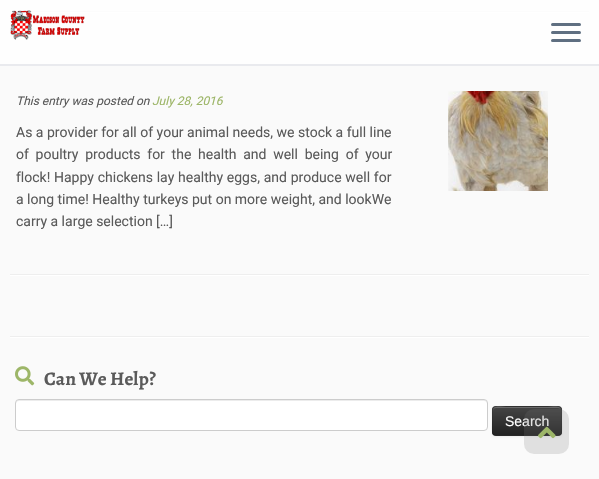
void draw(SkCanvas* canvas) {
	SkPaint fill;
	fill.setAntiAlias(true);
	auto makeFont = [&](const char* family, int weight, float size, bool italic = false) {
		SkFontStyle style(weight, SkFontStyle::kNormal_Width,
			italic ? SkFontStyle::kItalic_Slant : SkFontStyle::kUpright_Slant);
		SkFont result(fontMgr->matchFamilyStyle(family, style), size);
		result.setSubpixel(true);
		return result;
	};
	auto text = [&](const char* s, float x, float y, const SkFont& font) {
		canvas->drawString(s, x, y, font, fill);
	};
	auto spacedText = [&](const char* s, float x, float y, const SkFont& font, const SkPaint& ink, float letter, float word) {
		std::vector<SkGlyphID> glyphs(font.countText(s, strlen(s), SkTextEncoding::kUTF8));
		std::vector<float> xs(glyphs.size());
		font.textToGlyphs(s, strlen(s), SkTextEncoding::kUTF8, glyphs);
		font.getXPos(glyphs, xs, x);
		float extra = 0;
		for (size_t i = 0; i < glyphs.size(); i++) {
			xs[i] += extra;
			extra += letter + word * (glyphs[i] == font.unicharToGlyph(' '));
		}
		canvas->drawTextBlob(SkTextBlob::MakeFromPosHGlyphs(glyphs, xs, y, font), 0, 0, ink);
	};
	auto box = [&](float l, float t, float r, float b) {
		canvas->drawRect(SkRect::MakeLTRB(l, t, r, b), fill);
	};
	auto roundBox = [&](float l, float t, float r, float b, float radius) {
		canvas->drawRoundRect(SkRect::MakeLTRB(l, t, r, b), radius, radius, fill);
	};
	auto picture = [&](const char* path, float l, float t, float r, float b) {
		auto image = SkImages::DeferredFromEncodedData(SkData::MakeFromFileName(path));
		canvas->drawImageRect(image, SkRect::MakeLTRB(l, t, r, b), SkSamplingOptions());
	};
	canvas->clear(0xFFFAFAFA);
	fill.setColor(0xFFEEEEEE);
	box(10, 11, 589, 12);
	fill.setColor(0xFFFFFFFF);
	box(10, 12, 589, 13);
	fill.setColor(0xCCFFFFFF);
	box(0, 0, 599, 64);
	fill.setColor(0xFFE9EAEE);
	box(0, 64, 599, 66);
	picture("image0.png", 10, 10, 85, 40);
	fill.setColor(0xFF5F6F81);
	roundBox(551, 23, 581, 26, 1.5f);
	roundBox(551, 31, 581, 34, 1.5f);
	roundBox(551, 39, 581, 42, 1.5f);
	picture("image1.png", 448, 91, 548, 191);
	fill.setColor(0xFFEEEEEE);
	box(10, 274, 589, 275);
	fill.setColor(0xFFFFFFFF);
	box(10, 275, 589, 276);
	fill.setColor(0xFFEEEEEE);
	box(10, 336, 589, 337);
	fill.setColor(0xFFFFFFFF);
	box(10, 337, 589, 338);
	picture("image2.png", 15, 366, 35, 386);
	roundBox(15, 399, 488, 431, 4);
	fill.setColor(0xFFECECEC);
	canvas->drawPath(SkPathBuilder().moveTo(19, 401).lineTo(484, 401).cubicTo(486, 401, 487, 402, 487, 404).lineTo(487, 403).cubicTo(487, 401, 486, 400, 484, 400).lineTo(19, 400).cubicTo(17, 400, 16, 401, 16, 403).lineTo(16, 404).cubicTo(16, 402, 17, 401, 19, 401).close().detach(), fill);
	fill.setStyle(SkPaint::kStroke_Style);
	fill.setStrokeWidth(1);
	fill.setColor(0xFFCCCCCC);
	canvas->drawRoundRect(SkRect::MakeLTRB(15.5f, 399.5f, 487.5f, 430.5f), 3.5f, 3.5f, fill);
	fill.setStyle(SkPaint::kFill_Style);
	fill.setColor(0x0D000000);
	fill.setMaskFilter(SkMaskFilter::MakeBlur(kNormal_SkBlurStyle, 1));
	canvas->drawRoundRect(SkRect::MakeLTRB(492, 407, 562, 437), 4, 4, fill);
	fill.setMaskFilter(nullptr);
	fill.setColor(0xFF363636);
	roundBox(492, 406, 562, 436, 4);
	canvas->save();
	canvas->clipPath(SkPathBuilder().moveTo(496, 406).lineTo(558, 406).cubicTo(560, 406, 562, 408, 562, 410).lineTo(562, 432).cubicTo(562, 434, 560, 436, 558, 436).lineTo(496, 436).cubicTo(494, 436, 492, 434, 492, 432).lineTo(492, 410).cubicTo(492, 408, 494, 406, 496, 406).close().detach(), true);
	{
		const SkColor colors[] = {0xFF444444, 0xFF222222};
		const float stops[] = {0, 1};
		const SkPoint ends[] = {{527, 407}, {527, 435}};
		fill.setShader(SkGradientShader::MakeLinear(ends, colors, stops, 2, SkTileMode::kClamp));
		fill.setAlpha(255);
	}
	box(492, 407, 562, 435);
	canvas->restore();
	fill.setShader(nullptr);
	fill.setColor(0x33FFFFFF);
	canvas->drawPath(SkPathBuilder().moveTo(496, 408).lineTo(558, 408).cubicTo(560, 408, 561, 409, 561, 411).cubicTo(561, 404, 552, 407, 548, 407).lineTo(506, 407).cubicTo(502, 407, 493, 404, 493, 411).cubicTo(493, 409, 494, 408, 496, 408).close().detach(), fill);
	fill.setStyle(SkPaint::kStroke_Style);
	fill.setColor(0x40000000);
	canvas->drawPath(SkPathBuilder().moveTo(560.5f, 434.5f).lineTo(558.5f, 435.5f).lineTo(495.5f, 435.5f).lineTo(493.5f, 434.5f).detach(), fill);
	fill.setColor(0x1A000000);
	canvas->drawPath(SkPathBuilder().moveTo(493.5f, 434.5f).cubicTo(491.5f, 432.5f, 492.5f, 424, 492.5f, 421).cubicTo(492.5f, 405, 490, 406.5f, 506.5f, 406.5f).lineTo(547.5f, 406.5f).cubicTo(564, 406.5f, 561.5f, 405, 561.5f, 421).cubicTo(561.5f, 424, 562.5f, 432.5f, 560.5f, 434.5f).detach(), fill);
	auto font1 = makeFont("Roboto", 400, 12, true);
	fill.setStyle(SkPaint::kFill_Style);
	fill.setColor(0xFF5A5A5A);
	text("This entry was posted on", 16, 105, font1);
	fill.setColor(0xFF9DB668);
	text("July 28, 2016", 152, 105, font1);
	auto font2 = makeFont("Roboto", 400, 14);
	fill.setColor(0xFF5A5A5A);
	text("As a provider for all of your animal needs, we stock a full line", 16, 137, font2);
	spacedText("of poultry products for the health and well being of your", 16, 159, font2, fill, 0, 3.25f);
	spacedText("flock! Happy chickens lay healthy eggs, and produce well for", 16, 182, font2, fill, 0, 0.25f);
	text("a long time! Healthy turkeys put on more weight, and lookWe", 16, 204, font2);
	text("carry a large selection […]", 16, 226, font2);
	auto font3 = makeFont("Alegreya", 700, 19.25f);
	text("Can We Help?", 44, 385, font3);
	auto font4 = makeFont("Liberation Sans", 400, 14);
	fill.setColor(0xFFFFFFFF);
	text("Search", 505, 426, font4);
	fill.setColor(0x33777777);
	roundBox(524, 409, 569, 454, 10);
	picture("image3.png", 538, 426, 556, 439);
}
